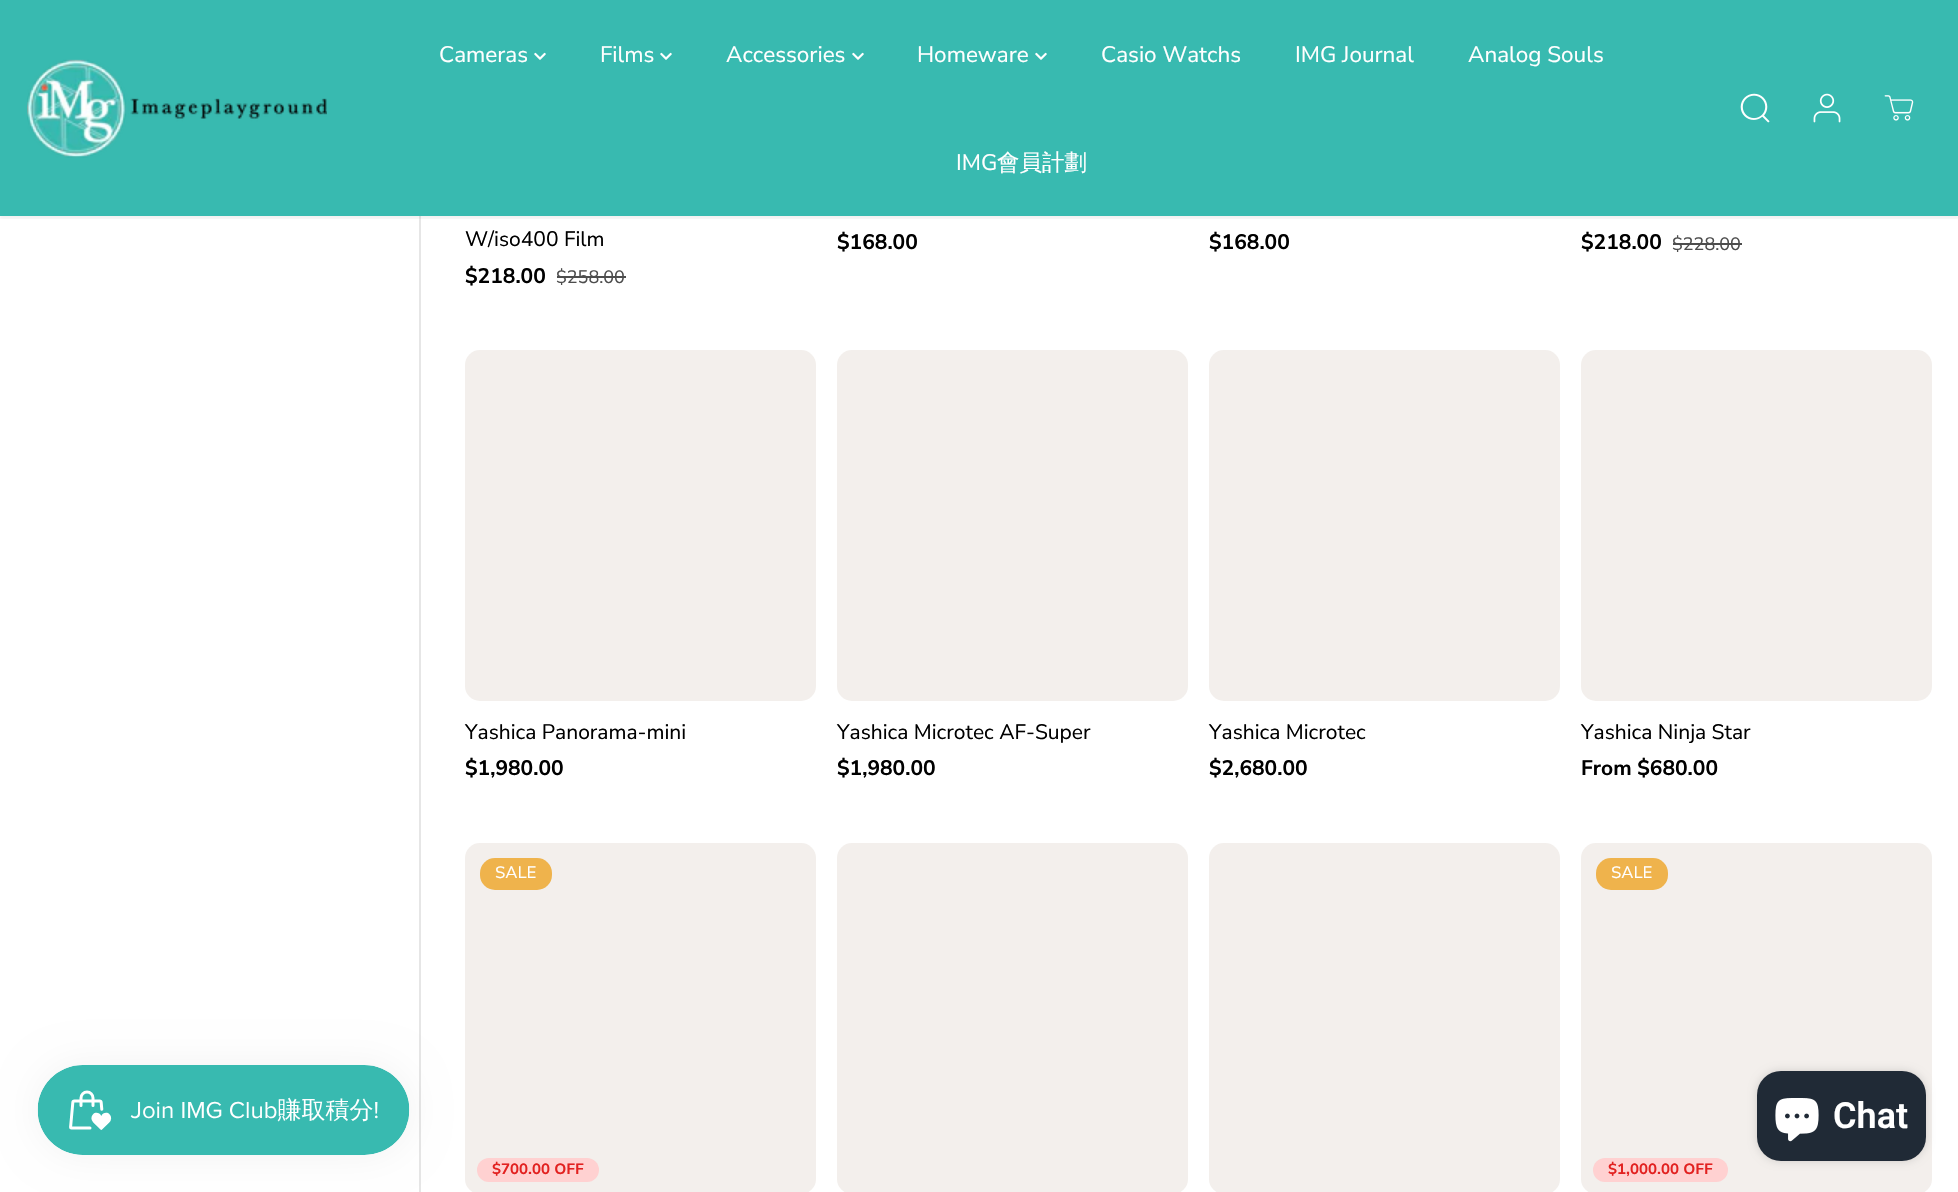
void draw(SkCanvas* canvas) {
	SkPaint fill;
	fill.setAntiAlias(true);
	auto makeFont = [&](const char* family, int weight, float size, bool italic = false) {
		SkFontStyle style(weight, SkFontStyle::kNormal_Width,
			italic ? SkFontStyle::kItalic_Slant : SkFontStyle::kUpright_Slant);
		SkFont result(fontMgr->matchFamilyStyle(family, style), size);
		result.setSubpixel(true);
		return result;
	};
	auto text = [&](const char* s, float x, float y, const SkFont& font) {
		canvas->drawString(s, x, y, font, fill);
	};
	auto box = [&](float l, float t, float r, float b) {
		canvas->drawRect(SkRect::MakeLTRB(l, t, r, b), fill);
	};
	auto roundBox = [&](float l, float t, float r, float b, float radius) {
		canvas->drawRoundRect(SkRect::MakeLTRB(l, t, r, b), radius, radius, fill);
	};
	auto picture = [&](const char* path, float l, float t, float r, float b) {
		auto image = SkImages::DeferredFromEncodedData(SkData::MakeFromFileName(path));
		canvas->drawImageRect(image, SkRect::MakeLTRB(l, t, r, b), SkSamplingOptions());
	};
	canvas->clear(0xFFFFFFFF);
	fill.setColor(0xFFE6E6E6);
	box(419, 216, 421, 1192);
	fill.setColor(0xFFF3EFEC);
	roundBox(465, 843, 816, 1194, 15);
	fill.setColor(0x0D000000);
	fill.setMaskFilter(SkMaskFilter::MakeBlur(kNormal_SkBlurStyle, 19));
	canvas->drawRoundRect(SkRect::MakeLTRB(38, 1065, 410, 1155), 45, 45, fill);
	fill.setMaskFilter(nullptr);
	picture("image0.png", 37, 1065, 410, 1155);
	fill.setColor(0xFF38BAB0);
	box(0, 0, 1958, 216);
	canvas->save();
	canvas->clipRect(SkRect::MakeLTRB(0, 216, 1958, 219));
	fill.setColor(0x0D000000);
	fill.setMaskFilter(SkMaskFilter::MakeBlur(kNormal_SkBlurStyle, 1.5f));
	canvas->drawRect(SkRect::MakeLTRB(0, 3, 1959, 219), fill);
	fill.setMaskFilter(nullptr);
	canvas->restore();
	picture("image1.png", 27, 59, 327, 158);
	picture("image2.png", 534, 52, 546, 60);
	picture("image2.png", 660, 52, 672, 60);
	picture("image2.png", 852, 52, 864, 60);
	picture("image2.png", 1035, 52, 1047, 60);
	picture("image3.png", 1740, 93, 1770, 123);
	picture("image4.png", 1813, 93, 1841, 123);
	picture("image5.png", 1884, 95, 1914, 121);
	fill.setColor(0xFF4D4D4D);
	box(557, 276, 626, 278);
	box(1673, 243, 1742, 245);
	fill.setColor(0xFFF3EFEC);
	roundBox(465, 350, 816, 701, 15);
	roundBox(837, 350, 1188, 701, 15);
	roundBox(1209, 350, 1560, 701, 15);
	roundBox(1581, 350, 1932, 701, 15);
	fill.setColor(0xFFEFB34C);
	roundBox(480, 858, 552, 890, 15);
	fill.setColor(0xFFFFD1D1);
	roundBox(477, 1158, 599, 1182, 12);
	fill.setColor(0xFFF3EFEC);
	roundBox(837, 843, 1188, 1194, 15);
	roundBox(1209, 843, 1560, 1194, 15);
	roundBox(1581, 843, 1932, 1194, 15);
	fill.setColor(0xFFEFB34C);
	roundBox(1596, 858, 1668, 890, 15);
	fill.setColor(0xFFFFD1D1);
	roundBox(1593, 1158, 1728, 1182, 12);
	fill.setColor(0x26000000);
	fill.setMaskFilter(SkMaskFilter::MakeBlur(kNormal_SkBlurStyle, 4));
	canvas->drawRoundRect(SkRect::MakeLTRB(1757, 1071, 1926, 1161), 24, 24, fill);
	fill.setMaskFilter(nullptr);
	fill.setColor(0xFF202A36);
	roundBox(1757, 1071, 1926, 1161, 24);
	picture("image6.png", 1775, 1098, 1819, 1142);
	auto font1 = makeFont("Nunito Sans", 400, 22.5f);
	fill.setColor(0xFFFFFFFF);
	text("Cameras", 439, 62, font1);
	text("Films", 600, 62, font1);
	text("Accessories", 726, 62, font1);
	text("Homeware", 917, 62, font1);
	text("Casio Watchs", 1101, 62, font1);
	text("IMG Journal", 1295, 62, font1);
	text("Analog Souls", 1468, 62, font1);
	text("IMG", 956, 170, font1);
	auto font2 = makeFont("WenQuanYi Zen Hei", 500, 22.5f);
	text("會員計劃", 997, 170, font2);
	auto font3 = makeFont("Nunito Sans", 400, 21);
	fill.setColor(0xFF000000);
	text("W/iso400 Film", 465, 246, font3);
	auto font4 = makeFont("Nunito Sans", 700, 21);
	text("$218.00", 465, 283, font4);
	auto font5 = makeFont("Nunito Sans", 400, 18);
	fill.setColor(0xFF4D4D4D);
	text("$258.00", 556, 283, font5);
	fill.setColor(0xFF000000);
	text("$168.00", 837, 249, font4);
	text("$168.00", 1209, 249, font4);
	text("$218.00", 1581, 249, font4);
	fill.setColor(0xFF4D4D4D);
	text("$228.00", 1672, 250, font5);
	fill.setColor(0xFF000000);
	text("Yashica Panorama-mini", 465, 739, font3);
	text("$1,980.00", 465, 775, font4);
	text("Yashica Microtec AF-Super", 837, 739, font3);
	text("$1,980.00", 837, 775, font4);
	text("Yashica Microtec", 1209, 739, font3);
	text("$2,680.00", 1209, 775, font4);
	text("Yashica Ninja Star", 1581, 739, font3);
	text("From $680.00", 1581, 775, font4);
	auto font6 = makeFont("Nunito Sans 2", 400, 16.5f);
	fill.setColor(0xFFFFFFFF);
	text("SALE", 495, 878, font6);
	auto font7 = makeFont("Nunito Sans 2", 700, 15);
	fill.setColor(0xFFE22120);
	text("$700.00 OFF", 492, 1174, font7);
	fill.setColor(0xFFFFFFFF);
	text("SALE", 1611, 878, font6);
	fill.setColor(0xFFE22120);
	text("$1,000.00 OFF", 1608, 1174, font7);
	auto font8 = makeFont("Roboto", 600, 36);
	fill.setColor(0xFFFFFFFF);
	text("Chat", 1833, 1128, font8);
}
